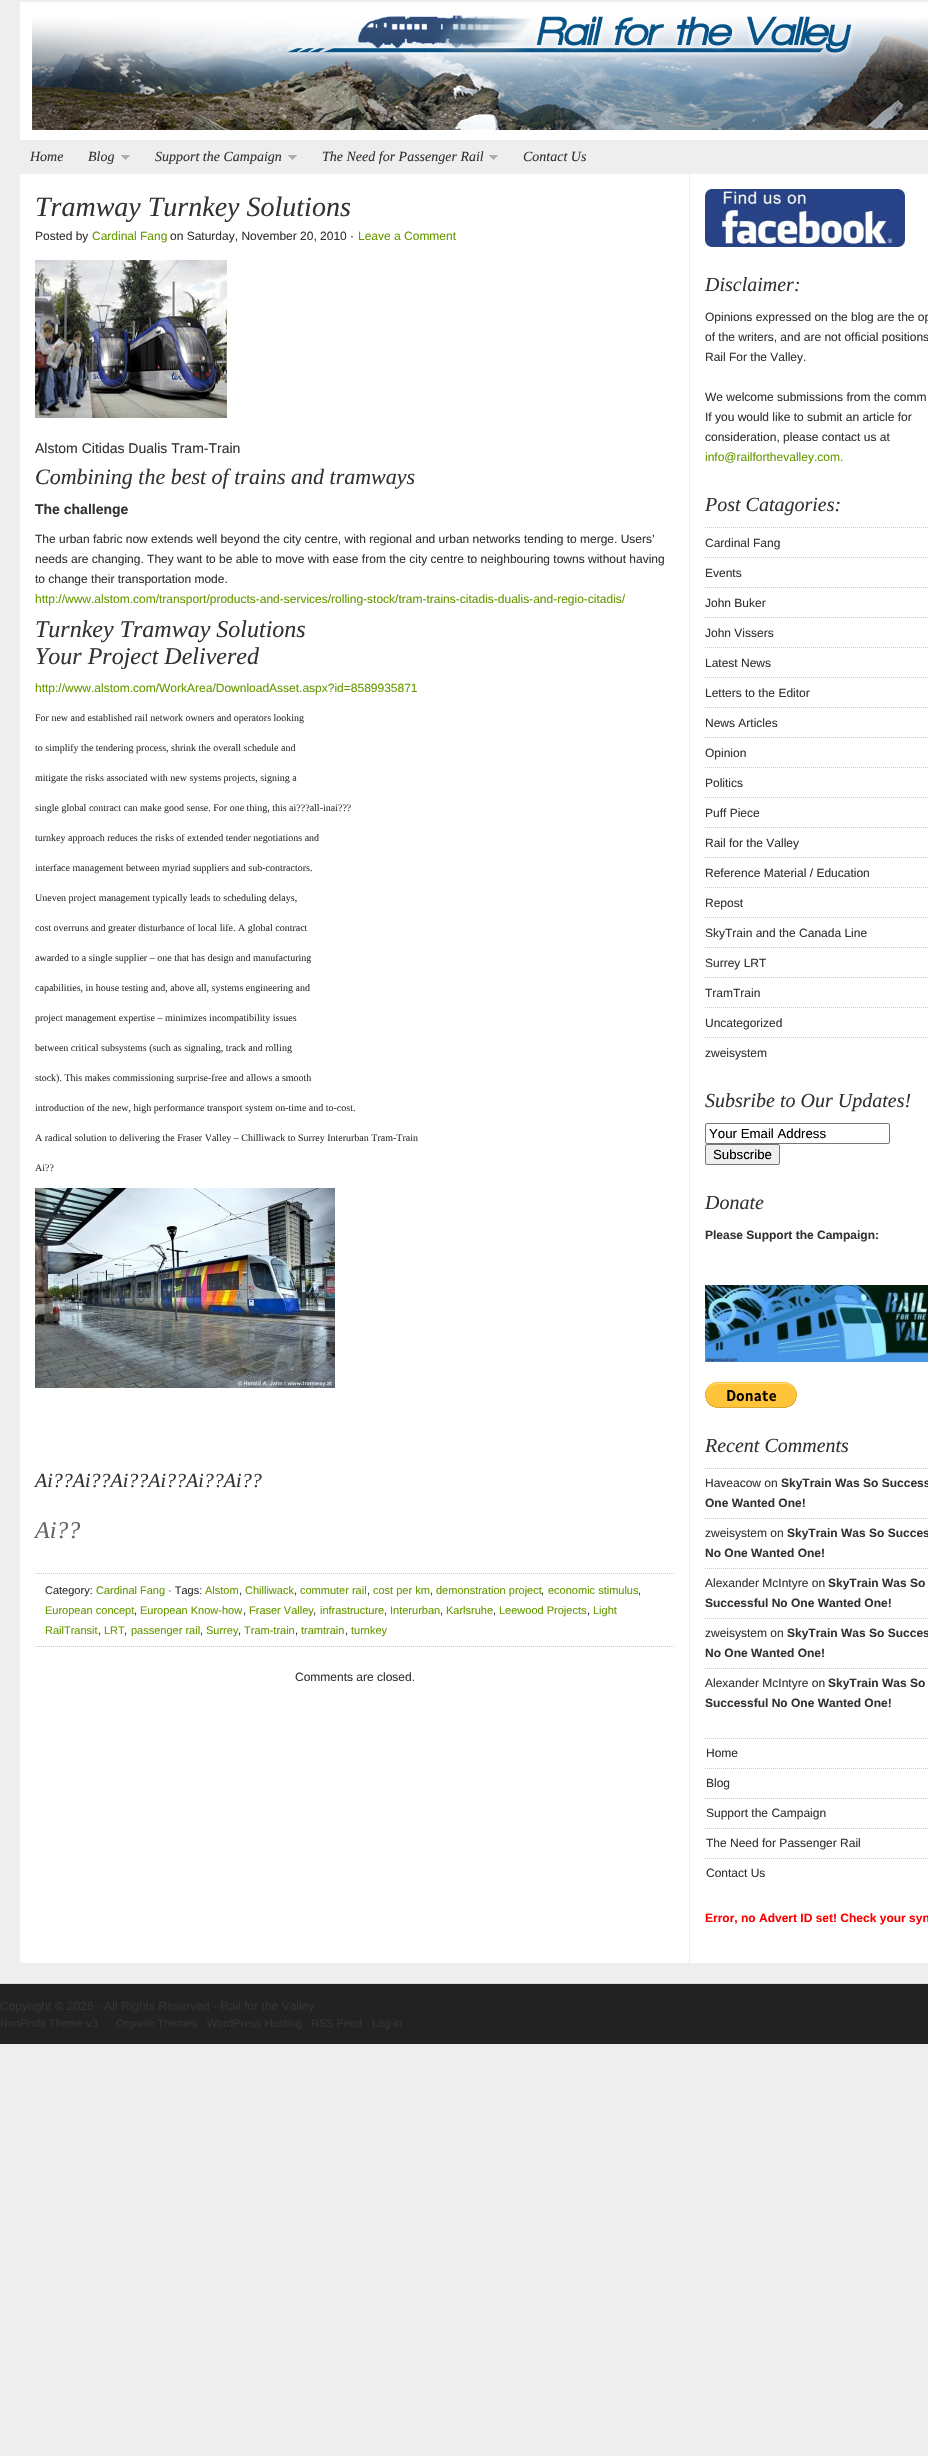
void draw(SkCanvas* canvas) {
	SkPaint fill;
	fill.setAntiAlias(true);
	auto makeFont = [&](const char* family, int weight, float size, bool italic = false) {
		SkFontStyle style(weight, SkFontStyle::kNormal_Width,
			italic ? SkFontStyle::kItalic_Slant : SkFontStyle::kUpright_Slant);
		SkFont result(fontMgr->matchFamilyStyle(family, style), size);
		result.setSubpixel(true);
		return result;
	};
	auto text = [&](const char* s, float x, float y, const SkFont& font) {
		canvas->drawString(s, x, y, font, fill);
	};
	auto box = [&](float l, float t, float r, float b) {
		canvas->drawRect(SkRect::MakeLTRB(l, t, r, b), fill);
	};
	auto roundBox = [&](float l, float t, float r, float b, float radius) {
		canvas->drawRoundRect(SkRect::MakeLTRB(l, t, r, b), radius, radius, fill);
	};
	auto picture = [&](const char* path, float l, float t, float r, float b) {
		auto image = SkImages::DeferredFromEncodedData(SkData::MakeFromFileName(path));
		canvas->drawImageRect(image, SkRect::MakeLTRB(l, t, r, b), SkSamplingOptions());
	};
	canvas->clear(0xFFEEEEEE);
	picture("image0.png", 20, 2, 928, 140);
	picture("image1.png", 121, 155, 130, 160);
	picture("image1.png", 288, 155, 297, 160);
	picture("image1.png", 489, 155, 498, 160);
	fill.setColor(0xFFFFFFFF);
	roundBox(20, 174, 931, 1963, 3);
	picture("image2.png", 35, 260, 227, 418);
	picture("image3.png", 35, 1188, 335, 1388);
	fill.setStyle(SkPaint::kStroke_Style);
	fill.setStrokeWidth(1);
	fill.setColor(0xFFCCCCCC);
	fill.setPathEffect(SkDashPathEffect::Make({{1, 1}}, 0));
	canvas->drawPath(SkPathBuilder().moveTo(35, 1573.5f).lineTo(675, 1573.5f).detach(), fill);
	fill.setPathEffect(nullptr);
	fill.setPathEffect(SkDashPathEffect::Make({{1, 1}}, 0));
	canvas->drawPath(SkPathBuilder().moveTo(35, 1646.5f).lineTo(675, 1646.5f).detach(), fill);
	fill.setPathEffect(nullptr);
	fill.setColor(0xFFDDDDDD);
	fill.setPathEffect(SkDashPathEffect::Make({{1, 1}}, 0));
	canvas->drawPath(SkPathBuilder().moveTo(689.5f, 174).lineTo(689.5f, 1963).detach(), fill);
	fill.setPathEffect(nullptr);
	picture("image4.png", 705, 189, 905, 247);
	fill.setColor(0xFFCCCCCC);
	fill.setPathEffect(SkDashPathEffect::Make({{1, 1}}, 0));
	canvas->drawPath(SkPathBuilder().moveTo(705, 527.5f).lineTo(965, 527.5f).detach(), fill);
	fill.setPathEffect(nullptr);
	fill.setPathEffect(SkDashPathEffect::Make({{1, 1}}, 0));
	canvas->drawPath(SkPathBuilder().moveTo(705, 557.5f).lineTo(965, 557.5f).detach(), fill);
	fill.setPathEffect(nullptr);
	fill.setPathEffect(SkDashPathEffect::Make({{1, 1}}, 0));
	canvas->drawPath(SkPathBuilder().moveTo(705, 587.5f).lineTo(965, 587.5f).detach(), fill);
	fill.setPathEffect(nullptr);
	fill.setPathEffect(SkDashPathEffect::Make({{1, 1}}, 0));
	canvas->drawPath(SkPathBuilder().moveTo(705, 617.5f).lineTo(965, 617.5f).detach(), fill);
	fill.setPathEffect(nullptr);
	fill.setPathEffect(SkDashPathEffect::Make({{1, 1}}, 0));
	canvas->drawPath(SkPathBuilder().moveTo(705, 647.5f).lineTo(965, 647.5f).detach(), fill);
	fill.setPathEffect(nullptr);
	fill.setPathEffect(SkDashPathEffect::Make({{1, 1}}, 0));
	canvas->drawPath(SkPathBuilder().moveTo(705, 677.5f).lineTo(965, 677.5f).detach(), fill);
	fill.setPathEffect(nullptr);
	fill.setPathEffect(SkDashPathEffect::Make({{1, 1}}, 0));
	canvas->drawPath(SkPathBuilder().moveTo(705, 707.5f).lineTo(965, 707.5f).detach(), fill);
	fill.setPathEffect(nullptr);
	fill.setPathEffect(SkDashPathEffect::Make({{1, 1}}, 0));
	canvas->drawPath(SkPathBuilder().moveTo(705, 737.5f).lineTo(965, 737.5f).detach(), fill);
	fill.setPathEffect(nullptr);
	fill.setPathEffect(SkDashPathEffect::Make({{1, 1}}, 0));
	canvas->drawPath(SkPathBuilder().moveTo(705, 767.5f).lineTo(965, 767.5f).detach(), fill);
	fill.setPathEffect(nullptr);
	fill.setPathEffect(SkDashPathEffect::Make({{1, 1}}, 0));
	canvas->drawPath(SkPathBuilder().moveTo(705, 797.5f).lineTo(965, 797.5f).detach(), fill);
	fill.setPathEffect(nullptr);
	fill.setPathEffect(SkDashPathEffect::Make({{1, 1}}, 0));
	canvas->drawPath(SkPathBuilder().moveTo(705, 827.5f).lineTo(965, 827.5f).detach(), fill);
	fill.setPathEffect(nullptr);
	fill.setPathEffect(SkDashPathEffect::Make({{1, 1}}, 0));
	canvas->drawPath(SkPathBuilder().moveTo(705, 857.5f).lineTo(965, 857.5f).detach(), fill);
	fill.setPathEffect(nullptr);
	fill.setPathEffect(SkDashPathEffect::Make({{1, 1}}, 0));
	canvas->drawPath(SkPathBuilder().moveTo(705, 887.5f).lineTo(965, 887.5f).detach(), fill);
	fill.setPathEffect(nullptr);
	fill.setPathEffect(SkDashPathEffect::Make({{1, 1}}, 0));
	canvas->drawPath(SkPathBuilder().moveTo(705, 917.5f).lineTo(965, 917.5f).detach(), fill);
	fill.setPathEffect(nullptr);
	fill.setPathEffect(SkDashPathEffect::Make({{1, 1}}, 0));
	canvas->drawPath(SkPathBuilder().moveTo(705, 947.5f).lineTo(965, 947.5f).detach(), fill);
	fill.setPathEffect(nullptr);
	fill.setPathEffect(SkDashPathEffect::Make({{1, 1}}, 0));
	canvas->drawPath(SkPathBuilder().moveTo(705, 977.5f).lineTo(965, 977.5f).detach(), fill);
	fill.setPathEffect(nullptr);
	fill.setPathEffect(SkDashPathEffect::Make({{1, 1}}, 0));
	canvas->drawPath(SkPathBuilder().moveTo(705, 1007.5f).lineTo(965, 1007.5f).detach(), fill);
	fill.setPathEffect(nullptr);
	fill.setPathEffect(SkDashPathEffect::Make({{1, 1}}, 0));
	canvas->drawPath(SkPathBuilder().moveTo(705, 1037.5f).lineTo(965, 1037.5f).detach(), fill);
	fill.setPathEffect(nullptr);
	fill.setColor(0xFF767676);
	canvas->drawRoundRect(SkRect::MakeLTRB(705.5f, 1123.5f, 889.5f, 1143.5f), 1.5f, 1.5f, fill);
	fill.setStyle(SkPaint::kFill_Style);
	fill.setColor(0xFFEFEFEF);
	canvas->drawRoundRect(SkRect::MakeLTRB(705.5f, 1144.5f, 779.5f, 1164.5f), 1.5f, 1.5f, fill);
	fill.setStyle(SkPaint::kStroke_Style);
	fill.setColor(0xFF767676);
	canvas->drawRoundRect(SkRect::MakeLTRB(705.5f, 1144.5f, 779.5f, 1164.5f), 1.5f, 1.5f, fill);
	picture("image5.png", 705, 1285, 928, 1362);
	picture("image6.png", 705, 1382, 797, 1408);
	fill.setColor(0xFFCCCCCC);
	fill.setPathEffect(SkDashPathEffect::Make({{1, 1}}, 0));
	canvas->drawPath(SkPathBuilder().moveTo(705, 1468.5f).lineTo(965, 1468.5f).detach(), fill);
	fill.setPathEffect(nullptr);
	fill.setPathEffect(SkDashPathEffect::Make({{1, 1}}, 0));
	canvas->drawPath(SkPathBuilder().moveTo(705, 1518.5f).lineTo(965, 1518.5f).detach(), fill);
	fill.setPathEffect(nullptr);
	fill.setPathEffect(SkDashPathEffect::Make({{1, 1}}, 0));
	canvas->drawPath(SkPathBuilder().moveTo(705, 1568.5f).lineTo(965, 1568.5f).detach(), fill);
	fill.setPathEffect(nullptr);
	fill.setPathEffect(SkDashPathEffect::Make({{1, 1}}, 0));
	canvas->drawPath(SkPathBuilder().moveTo(705, 1618.5f).lineTo(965, 1618.5f).detach(), fill);
	fill.setPathEffect(nullptr);
	fill.setPathEffect(SkDashPathEffect::Make({{1, 1}}, 0));
	canvas->drawPath(SkPathBuilder().moveTo(705, 1668.5f).lineTo(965, 1668.5f).detach(), fill);
	fill.setPathEffect(nullptr);
	fill.setPathEffect(SkDashPathEffect::Make({{1, 1}}, 0));
	canvas->drawPath(SkPathBuilder().moveTo(705, 1738.5f).lineTo(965, 1738.5f).detach(), fill);
	fill.setPathEffect(nullptr);
	fill.setPathEffect(SkDashPathEffect::Make({{1, 1}}, 0));
	canvas->drawPath(SkPathBuilder().moveTo(705, 1768.5f).lineTo(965, 1768.5f).detach(), fill);
	fill.setPathEffect(nullptr);
	fill.setPathEffect(SkDashPathEffect::Make({{1, 1}}, 0));
	canvas->drawPath(SkPathBuilder().moveTo(705, 1798.5f).lineTo(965, 1798.5f).detach(), fill);
	fill.setPathEffect(nullptr);
	fill.setPathEffect(SkDashPathEffect::Make({{1, 1}}, 0));
	canvas->drawPath(SkPathBuilder().moveTo(705, 1828.5f).lineTo(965, 1828.5f).detach(), fill);
	fill.setPathEffect(nullptr);
	fill.setPathEffect(SkDashPathEffect::Make({{1, 1}}, 0));
	canvas->drawPath(SkPathBuilder().moveTo(705, 1858.5f).lineTo(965, 1858.5f).detach(), fill);
	fill.setPathEffect(nullptr);
	fill.setStyle(SkPaint::kFill_Style);
	fill.setColor(0xFFDDDDDD);
	box(0, 1983, 928, 1984);
	fill.setColor(0xFF222222);
	box(0, 1984, 928, 2044);
	auto font1 = makeFont("Liberation Serif", 400, 14, true);
	fill.setColor(0xFF333333);
	text("Home", 30, 161, font1);
	text("Blog", 88, 161, font1);
	text("Support the Campaign", 155, 161, font1);
	text("The Need for Passenger Rail", 322, 161, font1);
	text("Contact Us", 523, 161, font1);
	auto font2 = makeFont("Liberation Serif", 400, 28, true);
	text("Tramway Turnkey Solutions", 35, 216, font2);
	auto font3 = makeFont("Liberation Sans", 400, 12);
	text("Posted by", 35, 240, font3);
	fill.setColor(0xFF669900);
	text("Cardinal Fang", 92, 240, font3);
	fill.setColor(0xFF333333);
	text("on Saturday, November 20, 2010 ·", 170, 240, font3);
	fill.setColor(0xFF669900);
	text("Leave a Comment", 358, 240, font3);
	auto font4 = makeFont("Liberation Sans", 400, 14);
	fill.setColor(0xFF333333);
	text("Alstom Citidas Dualis Tram-Train", 35, 453, font4);
	auto font5 = makeFont("Liberation Serif", 400, 22, true);
	text("Combining the best of trains and tramways", 35, 484, font5);
	auto font6 = makeFont("Liberation Sans", 700, 14);
	text("The challenge", 35, 514, font6);
	text("The urban fabric now extends well beyond the city centre, with regional and urban networks tending to merge. Users’", 35, 543, font3);
	text("needs are changing. They want to be able to move with ease from the city centre to neighbouring towns without having", 35, 563, font3);
	text("to change their transportation mode.", 35, 583, font3);
	fill.setColor(0xFF669900);
	text("http://www.alstom.com/transport/products-and-services/rolling-stock/tram-trains-citadis-dualis-and-regio-citadis/", 35, 603, font3);
	auto font7 = makeFont("Liberation Serif", 400, 24, true);
	fill.setColor(0xFF333333);
	text("Turnkey Tramway Solutions", 35, 637, font7);
	text("Your Project Delivered", 35, 664, font7);
	fill.setColor(0xFF669900);
	text("http://www.alstom.com/WorkArea/DownloadAsset.aspx?id=8589935871", 35, 692, font3);
	auto font8 = makeFont("Liberation Serif", 400, 10);
	fill.setColor(0xFF333333);
	text("For new and established rail network owners and operators looking", 35, 721, font8);
	text("to simplify the tendering process, shrink the overall schedule and", 35, 751, font8);
	text("mitigate the risks associated with new systems projects, signing a", 35, 781, font8);
	text("single global contract can make good sense. For one thing, this ai?\077?all-inai?\077?", 35, 811, font8);
	text("turnkey approach reduces the risks of extended tender negotiations and", 35, 841, font8);
	text("interface management between myriad suppliers and sub-contractors.", 35, 871, font8);
	text("Uneven project management typically leads to scheduling delays,", 35, 901, font8);
	text("cost overruns and greater disturbance of local life. A global contract", 35, 931, font8);
	text("awarded to a single supplier – one that has design and manufacturing", 35, 961, font8);
	text("capabilities, in house testing and, above all, systems engineering and", 35, 991, font8);
	text("project management expertise – minimizes incompatibility issues", 35, 1021, font8);
	text("between critical subsystems (such as signaling, track and rolling", 35, 1051, font8);
	text("stock). This makes commissioning surprise-free and allows a smooth", 35, 1081, font8);
	text("introduction of the new, high performance transport system on-time and to-cost.", 35, 1111, font8);
	text("A radical solution to delivering the Fraser Valley – Chilliwack to Surrey Interurban Tram-Train", 35, 1141, font8);
	text("Ai?\077", 35, 1171, font8);
	auto font9 = makeFont("Liberation Serif", 400, 20, true);
	text("Ai?\077Ai?\077Ai?\077Ai?\077Ai?\077Ai?\077", 35, 1487, font9);
	fill.setColor(0xFF646567);
	text("Ai?\077", 35, 1538, font7);
	auto font10 = makeFont("Liberation Sans", 400, 11);
	fill.setColor(0xFF333333);
	text("Category:", 45, 1594, font10);
	fill.setColor(0xFF669900);
	text("Cardinal Fang", 96, 1594, font10);
	fill.setColor(0xFF333333);
	text("· Tags:", 168, 1594, font10);
	fill.setColor(0xFF669900);
	text("Alstom", 205, 1594, font10);
	fill.setColor(0xFF333333);
	text(",", 239, 1594, font10);
	fill.setColor(0xFF669900);
	text("Chilliwack", 245, 1594, font10);
	fill.setColor(0xFF333333);
	text(",", 294, 1594, font10);
	fill.setColor(0xFF669900);
	text("commuter rail", 300, 1594, font10);
	fill.setColor(0xFF333333);
	text(",", 367, 1594, font10);
	fill.setColor(0xFF669900);
	text("cost per km", 373, 1594, font10);
	fill.setColor(0xFF333333);
	text(",", 430, 1594, font10);
	fill.setColor(0xFF669900);
	text("demonstration project", 436, 1594, font10);
	fill.setColor(0xFF333333);
	text(",", 541, 1594, font10);
	fill.setColor(0xFF669900);
	text("economic stimulus", 548, 1594, font10);
	fill.setColor(0xFF333333);
	text(",", 638, 1594, font10);
	fill.setColor(0xFF669900);
	text("European concept", 45, 1614, font10);
	fill.setColor(0xFF333333);
	text(",", 134, 1614, font10);
	fill.setColor(0xFF669900);
	text("European Know-how", 140, 1614, font10);
	fill.setColor(0xFF333333);
	text(",", 243, 1614, font10);
	fill.setColor(0xFF669900);
	text("Fraser Valley", 249, 1614, font10);
	fill.setColor(0xFF333333);
	text(",", 313, 1614, font10);
	fill.setColor(0xFF669900);
	text("infrastructure", 320, 1614, font10);
	fill.setColor(0xFF333333);
	text(",", 384, 1614, font10);
	fill.setColor(0xFF669900);
	text("Interurban", 390, 1614, font10);
	fill.setColor(0xFF333333);
	text(",", 440, 1614, font10);
	fill.setColor(0xFF669900);
	text("Karlsruhe", 446, 1614, font10);
	fill.setColor(0xFF333333);
	text(",", 493, 1614, font10);
	fill.setColor(0xFF669900);
	text("Leewood Projects", 499, 1614, font10);
	fill.setColor(0xFF333333);
	text(",", 587, 1614, font10);
	fill.setColor(0xFF669900);
	text("Light", 593, 1614, font10);
	text("RailTransit", 45, 1634, font10);
	fill.setColor(0xFF333333);
	text(",", 98, 1634, font10);
	fill.setColor(0xFF669900);
	text("LRT", 104, 1634, font10);
	fill.setColor(0xFF333333);
	text(",", 124, 1634, font10);
	fill.setColor(0xFF669900);
	text("passenger rail", 131, 1634, font10);
	fill.setColor(0xFF333333);
	text(",", 200, 1634, font10);
	fill.setColor(0xFF669900);
	text("Surrey", 206, 1634, font10);
	fill.setColor(0xFF333333);
	text(",", 238, 1634, font10);
	fill.setColor(0xFF669900);
	text("Tram-train", 244, 1634, font10);
	fill.setColor(0xFF333333);
	text(",", 295, 1634, font10);
	fill.setColor(0xFF669900);
	text("tramtrain", 301, 1634, font10);
	fill.setColor(0xFF333333);
	text(",", 345, 1634, font10);
	fill.setColor(0xFF669900);
	text("turnkey", 351, 1634, font10);
	fill.setColor(0xFF333333);
	text("Comments are closed.", 295, 1681, font3);
	text("Disclaimer:", 705, 291, font9);
	text("Opinions expressed on the blog are the op", 705, 321, font3);
	text("of the writers, and are not official positions", 705, 341, font3);
	text("Rail For the Valley.", 705, 361, font3);
	text("We welcome submissions from the comm", 705, 401, font3);
	text("If you would like to submit an article for", 705, 421, font3);
	text("consideration, please contact us at", 705, 441, font3);
	fill.setColor(0xFF669900);
	text("info@railforthevalley.com.", 705, 461, font3);
	fill.setColor(0xFF333333);
	text("Post Catagories:", 705, 511, font9);
	text("Cardinal Fang", 705, 547, font3);
	text("Events", 705, 577, font3);
	text("John Buker", 705, 607, font3);
	text("John Vissers", 705, 637, font3);
	text("Latest News", 705, 667, font3);
	text("Letters to the Editor", 705, 697, font3);
	text("News Articles", 705, 727, font3);
	text("Opinion", 705, 757, font3);
	text("Politics", 705, 787, font3);
	text("Puff Piece", 705, 817, font3);
	text("Rail for the Valley", 705, 847, font3);
	text("Reference Material / Education", 705, 877, font3);
	text("Repost", 705, 907, font3);
	text("SkyTrain and the Canada Line", 705, 937, font3);
	text("Surrey LRT", 705, 967, font3);
	text("TramTrain", 705, 997, font3);
	text("Uncategorized", 705, 1027, font3);
	text("zweisystem", 705, 1057, font3);
	text("Subsribe to Our Updates!", 705, 1107, font9);
	auto font11 = makeFont("Liberation Sans", 400, 13.25f);
	fill.setColor(0xFF000000);
	text("Your Email Address", 709, 1138, font11);
	text("Subscribe", 713, 1159, font11);
	fill.setColor(0xFF333333);
	text("Donate", 705, 1209, font9);
	auto font12 = makeFont("Liberation Sans", 700, 12);
	text("Please Support the Campaign:", 705, 1239, font12);
	text("Recent Comments", 705, 1452, font9);
	text("Haveacow on", 705, 1487, font3);
	text("SkyTrain Was So Success", 781, 1487, font12);
	text("One Wanted One!", 705, 1507, font12);
	text("zweisystem on", 705, 1537, font3);
	text("SkyTrain Was So Succes", 787, 1537, font12);
	text("No One Wanted One!", 705, 1557, font12);
	text("Alexander McIntyre on", 705, 1587, font3);
	text("SkyTrain Was So", 828, 1587, font12);
	text("Successful No One Wanted One!", 705, 1607, font12);
	text("zweisystem on", 705, 1637, font3);
	text("SkyTrain Was So Succes", 787, 1637, font12);
	text("No One Wanted One!", 705, 1657, font12);
	text("Alexander McIntyre on", 705, 1687, font3);
	text("SkyTrain Was So", 828, 1687, font12);
	text("Successful No One Wanted One!", 705, 1707, font12);
	text("Home", 706, 1757, font3);
	text("Blog", 706, 1787, font3);
	text("Support the Campaign", 706, 1817, font3);
	text("The Need for Passenger Rail", 706, 1847, font3);
	text("Contact Us", 706, 1877, font3);
	fill.setColor(0xFFFF0000);
	text("Error, no Advert ID set! Check your syn", 705, 1922, font12);
	fill.setColor(0xFF333333);
	text("Copyright © 2026 · All Rights Reserved · Rail for the Valley", 0, 2010, font3);
	text("NonProfit Theme v3", 0, 2027, font10);
	text("Organic Themes", 116, 2027, font10);
	text("WordPress Hosting", 207, 2027, font10);
	text("RSS Feed", 311, 2027, font10);
	text("Log in", 372, 2027, font10);
}
